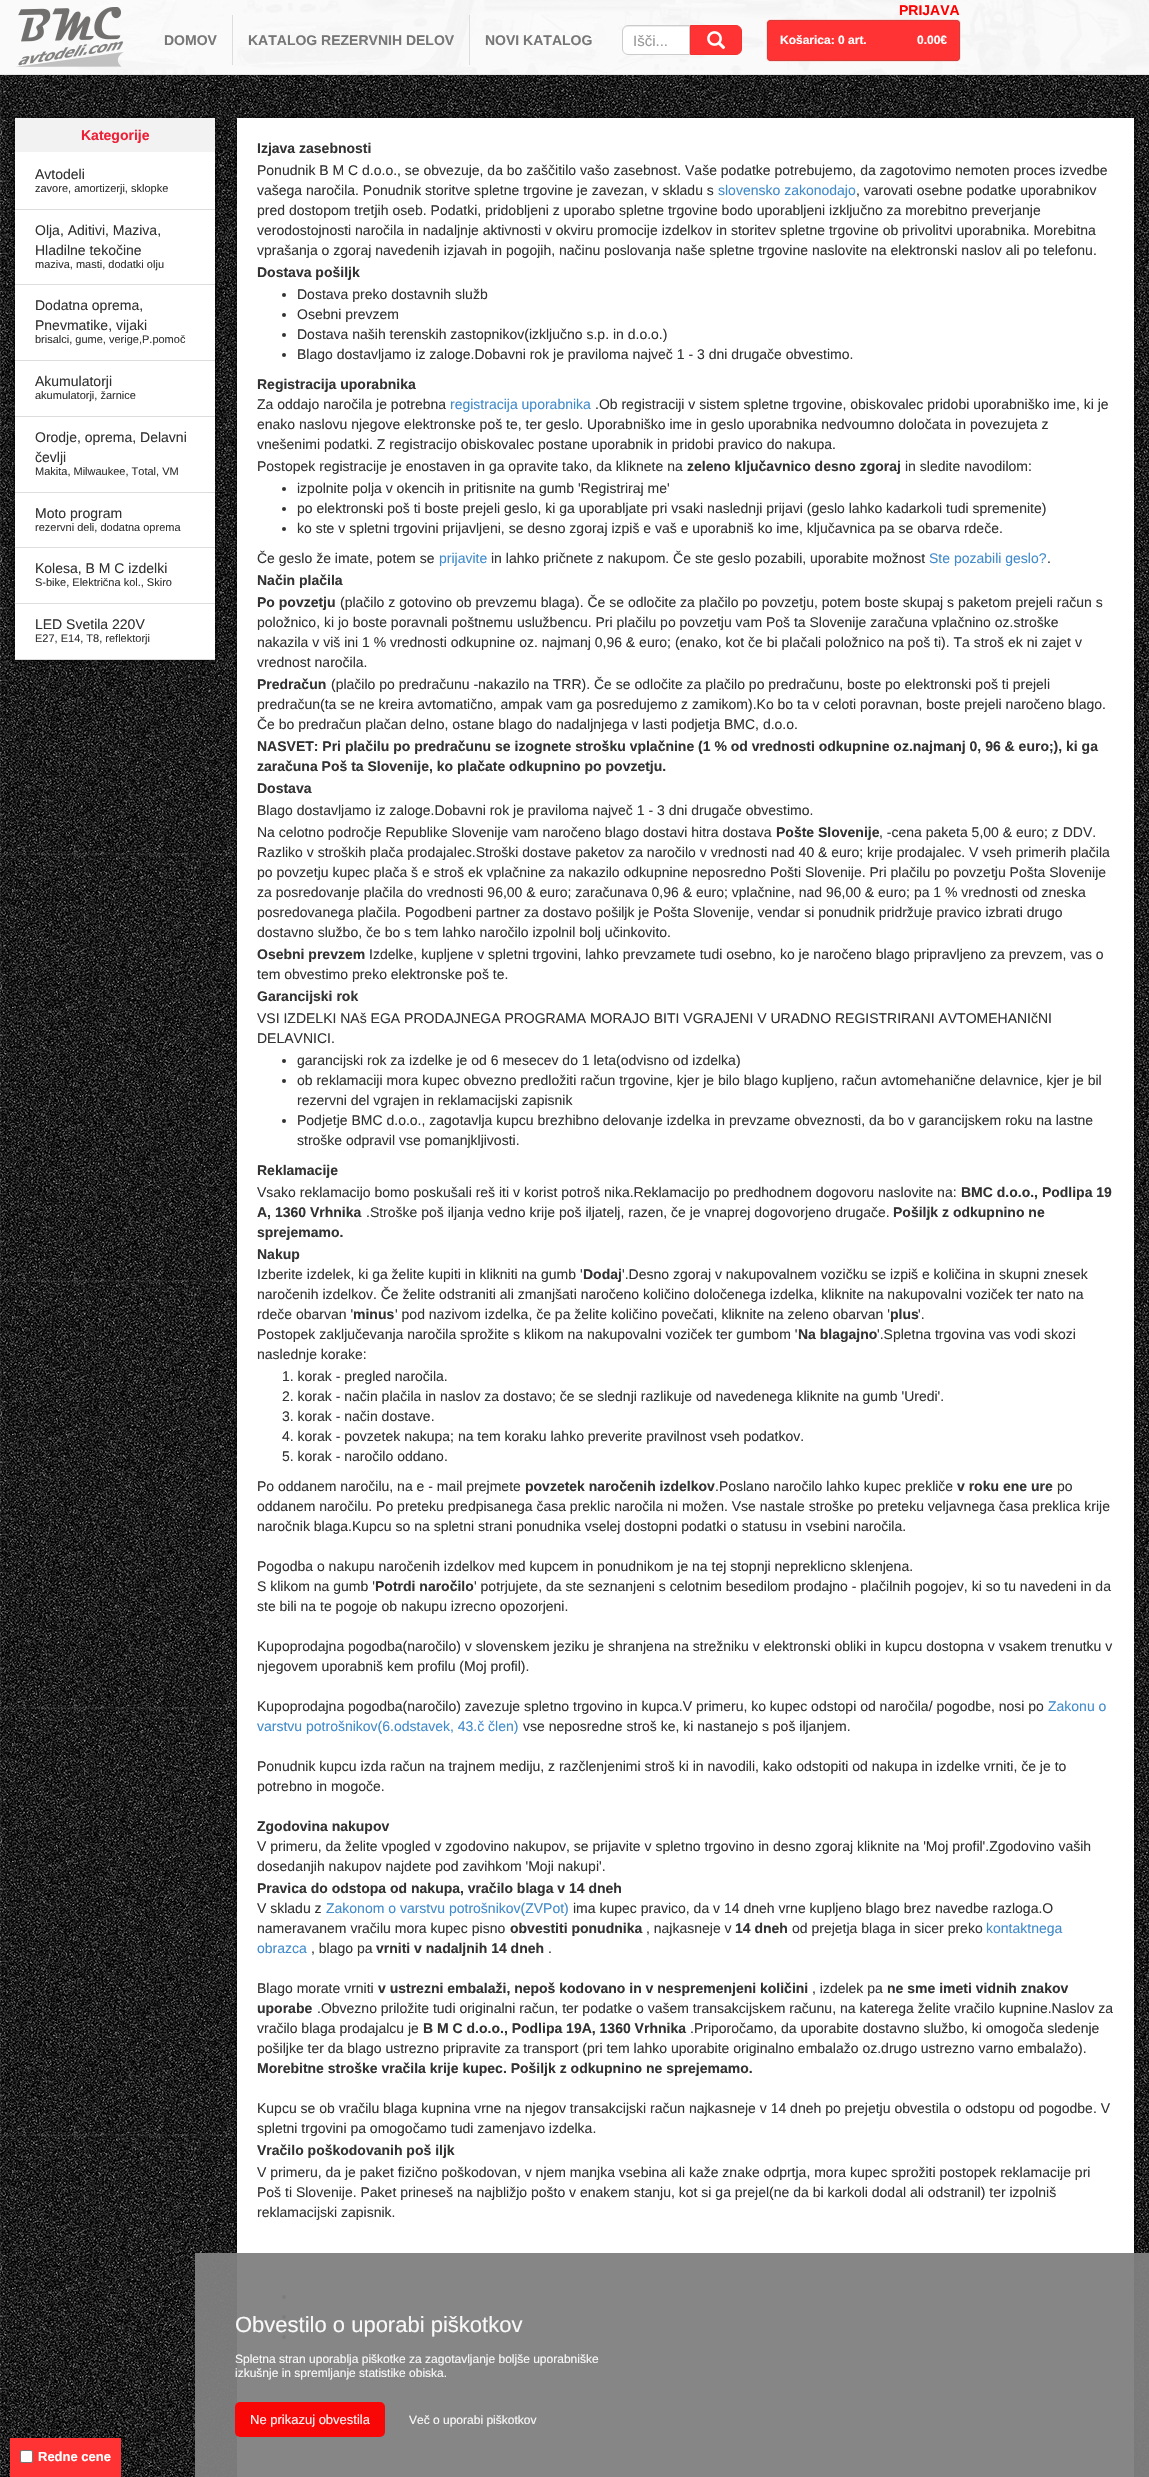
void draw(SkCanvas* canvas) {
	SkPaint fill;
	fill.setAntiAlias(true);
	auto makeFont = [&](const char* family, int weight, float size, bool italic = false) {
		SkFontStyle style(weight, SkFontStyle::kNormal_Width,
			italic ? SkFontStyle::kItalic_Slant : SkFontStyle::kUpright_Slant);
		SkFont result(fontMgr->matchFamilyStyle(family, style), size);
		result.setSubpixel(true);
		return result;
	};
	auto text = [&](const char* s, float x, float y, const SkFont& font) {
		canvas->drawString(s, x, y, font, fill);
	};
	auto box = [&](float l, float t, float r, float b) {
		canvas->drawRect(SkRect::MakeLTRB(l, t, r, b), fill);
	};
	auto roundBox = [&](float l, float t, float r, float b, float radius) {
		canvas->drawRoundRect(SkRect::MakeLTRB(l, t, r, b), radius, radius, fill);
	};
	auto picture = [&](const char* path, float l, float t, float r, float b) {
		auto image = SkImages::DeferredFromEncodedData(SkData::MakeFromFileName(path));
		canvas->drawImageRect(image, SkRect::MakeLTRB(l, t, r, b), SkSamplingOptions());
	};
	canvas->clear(0xFFFFFFFF);
	picture("image0.png", 0, 75, 1149, 2477);
	picture("image1.png", 0, 0, 1149, 74);
	fill.setColor(0xFFE7E7E7);
	box(0, 74, 1149, 75);
	picture("image2.png", 16, 7, 124, 67);
	fill.setColor(0xFFDDDDDD);
	box(232, 15, 233, 65);
	box(469, 15, 470, 65);
	fill.setColor(0xFFFFFFFF);
	canvas->drawPath(SkPathBuilder().moveTo(628, 25).lineTo(690, 25).lineTo(690, 55).lineTo(628, 55).cubicTo(624.5f, 55, 622, 52.5f, 622, 49).lineTo(622, 31).cubicTo(622, 27.5f, 624.5f, 25, 628, 25).close().detach(), fill);
	fill.setColor(0xFFECECEC);
	canvas->drawPath(SkPathBuilder().moveTo(628, 27).lineTo(689, 27).lineTo(689, 26).lineTo(628, 26).cubicTo(625, 26, 623, 28, 623, 31).lineTo(623, 32).cubicTo(623, 29, 625, 27, 628, 27).close().detach(), fill);
	fill.setStyle(SkPaint::kStroke_Style);
	fill.setStrokeWidth(1);
	fill.setColor(0xFFCCCCCC);
	canvas->drawPath(SkPathBuilder().moveTo(628, 25.5f).lineTo(689.5f, 25.5f).lineTo(689.5f, 54.5f).lineTo(628, 54.5f).cubicTo(625, 54.5f, 622.5f, 52, 622.5f, 49).lineTo(622.5f, 31).cubicTo(622.5f, 28, 625, 25.5f, 628, 25.5f).close().detach(), fill);
	fill.setStyle(SkPaint::kFill_Style);
	fill.setColor(0xFFFF3333);
	canvas->drawPath(SkPathBuilder().moveTo(690.5f, 25.5f).lineTo(736, 25.5f).cubicTo(739, 25.5f, 741.5f, 28, 741.5f, 31).lineTo(741.5f, 49).cubicTo(741.5f, 52, 739, 54.5f, 736, 54.5f).lineTo(690.5f, 54.5f).close().detach(), fill);
	fill.setStyle(SkPaint::kStroke_Style);
	fill.setColor(0xFFF2322F);
	canvas->drawPath(SkPathBuilder().moveTo(690.5f, 25.5f).lineTo(736, 25.5f).cubicTo(739, 25.5f, 741.5f, 28, 741.5f, 31).lineTo(741.5f, 49).cubicTo(741.5f, 52, 739, 54.5f, 736, 54.5f).lineTo(690.5f, 54.5f).close().detach(), fill);
	picture("image3.png", 707, 31, 726, 50);
	fill.setStyle(SkPaint::kFill_Style);
	fill.setColor(0xFFFF0000);
	fill.setMaskFilter(SkMaskFilter::MakeBlur(kNormal_SkBlurStyle, 0.5f));
	canvas->drawRoundRect(SkRect::MakeLTRB(767, 20, 960, 61), 4, 4, fill);
	fill.setMaskFilter(nullptr);
	fill.setColor(0xFFFF3333);
	canvas->drawRoundRect(SkRect::MakeLTRB(767.5f, 20.5f, 959.5f, 60.5f), 3.5f, 3.5f, fill);
	fill.setStyle(SkPaint::kStroke_Style);
	fill.setColor(0xFFD43F3A);
	canvas->drawRoundRect(SkRect::MakeLTRB(767.5f, 20.5f, 959.5f, 60.5f), 3.5f, 3.5f, fill);
	fill.setStyle(SkPaint::kFill_Style);
	fill.setColor(0xFF000000);
	fill.setMaskFilter(SkMaskFilter::MakeBlur(kNormal_SkBlurStyle, 2.5f));
	canvas->drawRect(SkRect::MakeLTRB(15, 118, 215, 660), fill);
	fill.setMaskFilter(nullptr);
	fill.setColor(0xFFFFFFFF);
	box(15, 152, 215, 659);
	fill.setColor(0xFFF2F2F2);
	box(15, 118, 215, 152);
	fill.setColor(0xFFDDDDDD);
	box(15, 209, 215, 210);
	box(15, 284, 215, 285);
	box(15, 360, 215, 361);
	box(15, 416, 215, 417);
	box(15, 492, 215, 493);
	box(15, 547, 215, 548);
	box(15, 603, 215, 604);
	box(15, 659, 215, 660);
	fill.setColor(0xFF000000);
	fill.setMaskFilter(SkMaskFilter::MakeBlur(kNormal_SkBlurStyle, 2.5f));
	canvas->drawRect(SkRect::MakeLTRB(237, 118, 1134, 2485), fill);
	fill.setMaskFilter(nullptr);
	fill.setColor(0xFFFFFFFF);
	box(237, 118, 1134, 2477);
	fill.setColor(0xFF333333);
	canvas->drawCircle(284, 295, 2, fill);
	canvas->drawCircle(284, 315, 2, fill);
	canvas->drawCircle(284, 335, 2, fill);
	canvas->drawCircle(284, 355, 2, fill);
	canvas->drawCircle(284, 489, 2, fill);
	canvas->drawCircle(284, 509, 2, fill);
	canvas->drawCircle(284, 529, 2, fill);
	canvas->drawCircle(284, 1061, 2, fill);
	canvas->drawCircle(284, 1081, 2, fill);
	canvas->drawCircle(284, 1121, 2, fill);
	canvas->drawCircle(284, 2297, 2, fill);
	canvas->drawCircle(284, 2317, 2, fill);
	canvas->drawCircle(284, 2337, 2, fill);
	fill.setColor(0xF2808080);
	box(195, 2253, 1149, 2477);
	fill.setColor(0xF2FF0000);
	roundBox(235, 2402, 385, 2437, 5);
	fill.setColor(0xFFFF3333);
	box(10, 2438, 121, 2477);
	fill.setColor(0xFFFFFFFF);
	canvas->drawRoundRect(SkRect::MakeLTRB(20.5f, 2450.5f, 32.5f, 2462.5f), 1.5f, 1.5f, fill);
	fill.setStyle(SkPaint::kStroke_Style);
	fill.setColor(0xFF767676);
	canvas->drawRoundRect(SkRect::MakeLTRB(20.5f, 2450.5f, 32.5f, 2462.5f), 1.5f, 1.5f, fill);
	auto font1 = makeFont("Liberation Sans", 700, 14);
	fill.setStyle(SkPaint::kFill_Style);
	fill.setColor(0xFF777777);
	text("DOMOV", 164, 45, font1);
	text("KATALOG REZERVNIH DELOV", 248, 45, font1);
	text("NOVI KATALOG", 485, 45, font1);
	auto font2 = makeFont("Liberation Sans", 400, 15);
	fill.setColor(0xFF999999);
	text("Išči...", 633, 46, font2);
	fill.setColor(0xFFFF0000);
	text("PRIJAVA", 899, 15, font1);
	auto font3 = makeFont("Liberation Sans", 700, 12);
	fill.setColor(0xFFFFFFFF);
	text("Košarica: 0 art.", 780, 44, font3);
	text("0.00€", 917, 44, font3);
	fill.setColor(0xFFEF1F36);
	text("Kategorije", 81, 140, font1);
	auto font4 = makeFont("Liberation Sans", 400, 14);
	fill.setColor(0xFF333333);
	text("Avtodeli", 35, 179, font4);
	auto font5 = makeFont("Liberation Sans", 400, 11);
	text("zavore, amortizerji, sklopke", 35, 192, font5);
	text("Olja, Aditivi, Maziva,", 35, 235, font4);
	text("Hladilne tekočine", 35, 255, font4);
	text("maziva, masti, dodatki olju", 35, 268, font5);
	text("Dodatna oprema,", 35, 310, font4);
	text("Pnevmatike, vijaki", 35, 330, font4);
	text("brisalci, gume, verige,P.pomoč", 35, 343, font5);
	text("Akumulatorji", 35, 386, font4);
	text("akumulatorji, žarnice", 35, 399, font5);
	text("Orodje, oprema, Delavni", 35, 442, font4);
	text("čevlji", 35, 462, font4);
	text("Makita, Milwaukee, Total, VM", 35, 475, font5);
	text("Moto program", 35, 518, font4);
	text("rezervni deli, dodatna oprema", 35, 531, font5);
	text("Kolesa, B M C izdelki", 35, 573, font4);
	text("S-bike, Električna kol., Skiro", 35, 586, font5);
	text("LED Svetila 220V", 35, 629, font4);
	text("E27, E14, T8, reflektorji", 35, 642, font5);
	text("Izjava zasebnosti", 257, 153, font1);
	text("Ponudnik B M C d.o.o., se obvezuje, da bo zaščitilo vašo zasebnost. Vaše podatke potrebujemo, da zagotovimo nemoten proces izvedbe", 257, 175, font4);
	text("vašega naročila. Ponudnik storitve spletne trgovine je zavezan, v skladu s", 257, 195, font4);
	fill.setColor(0xFF428BCA);
	text("slovensko zakonodajo", 718, 195, font4);
	fill.setColor(0xFF333333);
	text(", varovati osebne podatke uporabnikov", 856, 195, font4);
	text("pred dostopom tretjih oseb. Podatki, pridobljeni z uporabo spletne trgovine bodo uporabljeni izključno za morebitno preverjanje", 257, 215, font4);
	text("verodostojnosti naročila in nadaljnje aktivnosti v okviru promocije izdelkov in storitev spletne trgovine ob privolitvi uporabnika. Morebitna", 257, 235, font4);
	text("vprašanja o zgoraj navedenih izjavah in pogojih, načinu poslovanja naše spletne trgovine naslovite na elektronski naslov ali po telefonu.", 257, 255, font4);
	text("Dostava pošiljk", 257, 277, font1);
	text("Dostava preko dostavnih služb", 297, 299, font4);
	text("Osebni prevzem", 297, 319, font4);
	text("Dostava naših terenskih zastopnikov(izključno s.p. in d.o.o.)", 297, 339, font4);
	text("Blago dostavljamo iz zaloge.Dobavni rok je praviloma največ 1 - 3 dni drugače obvestimo.", 297, 359, font4);
	text("Registracija uporabnika", 257, 389, font1);
	text("Za oddajo naročila je potrebna", 257, 409, font4);
	fill.setColor(0xFF428BCA);
	text("registracija uporabnika", 450, 409, font4);
	fill.setColor(0xFF333333);
	text(".Ob registraciji v sistem spletne trgovine, obiskovalec pridobi uporabniško ime, ki je", 595, 409, font4);
	text("enako naslovu njegove elektronske poš te, ter geslo. Uporabniško ime in geslo uporabnika nedvoumno določata in povezujeta z", 257, 429, font4);
	text("vnešenimi podatki. Z registracijo obiskovalec postane uporabnik in pridobi pravico do nakupa.", 257, 449, font4);
	text("Postopek registracije je enostaven in ga opravite tako, da kliknete na", 257, 471, font4);
	text("zeleno ključavnico desno zgoraj", 687, 471, font1);
	text("in sledite navodilom:", 905, 471, font4);
	text("izpolnite polja v okencih in pritisnite na gumb 'Registriraj me'", 297, 493, font4);
	text("po elektronski poš ti boste prejeli geslo, ki ga uporabljate pri vsaki naslednji prijavi (geslo lahko kadarkoli tudi spremenite)", 297, 513, font4);
	text("ko ste v spletni trgovini prijavljeni, se desno zgoraj izpiš e vaš e uporabniš ko ime, ključavnica pa se obarva rdeče.", 297, 533, font4);
	text("Če geslo že imate, potem se", 257, 563, font4);
	fill.setColor(0xFF428BCA);
	text("prijavite", 439, 563, font4);
	fill.setColor(0xFF333333);
	text("in lahko pričnete z nakupom. Če ste geslo pozabili, uporabite možnost", 491, 563, font4);
	fill.setColor(0xFF428BCA);
	text("Ste pozabili geslo?", 929, 563, font4);
	fill.setColor(0xFF333333);
	text(".", 1047, 563, font4);
	text("Način plačila", 257, 585, font1);
	text("Po povzetju", 257, 607, font1);
	text("(plačilo z gotovino ob prevzemu blaga). Če se odločite za plačilo po povzetju, potem boste skupaj s paketom prejeli račun s", 340, 607, font4);
	text("položnico, ki jo boste poravnali poštnemu uslužbencu. Pri plačilu po povzetju vam Poš ta Slovenije zaračuna vplačnino oz.stroške", 257, 627, font4);
	text("nakazila v viš ini 1 % vrednosti odkupnine oz. najmanj 0,96 & euro; (enako, kot če bi plačali položnico na poš ti). Ta stroš ek ni zajet v", 257, 647, font4);
	text("vrednost naročila.", 257, 667, font4);
	text("Predračun", 257, 689, font1);
	text("(plačilo po predračunu -nakazilo na TRR). Če se odločite za plačilo po predračunu, boste po elektronski poš ti prejeli", 331, 689, font4);
	text("predračun(ta se ne kreira avtomatično, ampak vam ga posredujemo z zamikom).Ko bo ta v celoti poravnan, boste prejeli naročeno blago.", 257, 709, font4);
	text("Če bo predračun plačan delno, ostane blago do nadaljnjega v lasti podjetja BMC, d.o.o.", 257, 729, font4);
	text("NASVET: Pri plačilu po predračunu se izognete strošku vplačnine (1 % od vrednosti odkupnine oz.najmanj 0, 96 & euro;), ki ga", 257, 751, font1);
	text("zaračuna Poš ta Slovenije, ko plačate odkupnino po povzetju.", 257, 771, font1);
	text("Dostava", 257, 793, font1);
	text("Blago dostavljamo iz zaloge.Dobavni rok je praviloma največ 1 - 3 dni drugače obvestimo.", 257, 815, font4);
	text("Na celotno področje Republike Slovenije vam naročeno blago dostavi hitra dostava", 257, 837, font4);
	text("Pošte Slovenije", 776, 837, font1);
	text(", -cena paketa 5,00 & euro; z DDV.", 879, 837, font4);
	text("Razliko v stroških plača prodajalec.Stroški dostave paketov za naročilo v vrednosti nad 40 & euro; krije prodajalec. V vseh primerih plačila", 257, 857, font4);
	text("po povzetju kupec plača š e stroš ek vplačnine za nakazilo odkupnine neposredno Pošti Slovenije. Pri plačilu po povzetju Pošta Slovenije", 257, 877, font4);
	text("za posredovanje plačila do vrednosti 96,00 & euro; zaračunava 0,96 & euro; vplačnine, nad 96,00 & euro; pa 1 % vrednosti od zneska", 257, 897, font4);
	text("posredovanega plačila. Pogodbeni partner za dostavo pošiljk je Pošta Slovenije, vendar si ponudnik pridržuje pravico izbrati drugo", 257, 917, font4);
	text("dostavno službo, če bo s tem lahko naročilo izpolnil bolj učinkovito.", 257, 937, font4);
	text("Osebni prevzem", 257, 959, font1);
	text("Izdelke, kupljene v spletni trgovini, lahko prevzamete tudi osebno, ko je naročeno blago pripravljeno za prevzem, vas o", 369, 959, font4);
	text("tem obvestimo preko elektronske poš te.", 257, 979, font4);
	text("Garancijski rok", 257, 1001, font1);
	text("VSI IZDELKI NAš EGA PRODAJNEGA PROGRAMA MORAJO BITI VGRAJENI V URADNO REGISTRIRANI AVTOMEHANIčNI", 257, 1023, font4);
	text("DELAVNICI.", 257, 1043, font4);
	text("garancijski rok za izdelke je od 6 mesecev do 1 leta(odvisno od izdelka)", 297, 1065, font4);
	text("ob reklamaciji mora kupec obvezno predložiti račun trgovine, kjer je bilo blago kupljeno, račun avtomehanične delavnice, kjer je bil", 297, 1085, font4);
	text("rezervni del vgrajen in reklamacijski zapisnik", 297, 1105, font4);
	text("Podjetje BMC d.o.o., zagotavlja kupcu brezhibno delovanje izdelka in prevzame obveznosti, da bo v garancijskem roku na lastne", 297, 1125, font4);
	text("stroške odpravil vse pomanjkljivosti.", 297, 1145, font4);
	text("Reklamacije", 257, 1175, font1);
	text("Vsako reklamacijo bomo poskušali reš iti v korist potroš nika.Reklamacijo po predhodnem dogovoru naslovite na:", 257, 1197, font4);
	text("BMC d.o.o., Podlipa 19", 961, 1197, font1);
	text("A, 1360 Vrhnika", 257, 1217, font1);
	text(".Stroške poš iljanja vedno krije poš iljatelj, razen, če je vnaprej dogovorjeno drugače.", 366, 1217, font4);
	text("Pošiljk z odkupnino ne", 893, 1217, font1);
	text("sprejemamo.", 257, 1237, font1);
	text("Nakup", 257, 1259, font1);
	text("Izberite izdelek, ki ga želite kupiti in klikniti na gumb '", 257, 1279, font4);
	text("Dodaj", 583, 1279, font1);
	text("'.Desno zgoraj v nakupovalnem vozičku se izpiš e količina in skupni znesek", 622, 1279, font4);
	text("naročenih izdelkov. Če želite odstraniti ali zmanjšati naročeno količino določenega izdelka, kliknite na nakupovalni voziček ter nato na", 257, 1299, font4);
	text("rdeče obarvan '", 257, 1319, font4);
	text("minus", 353, 1319, font1);
	text("' pod nazivom izdelka, če pa želite količino povečati, kliknite na zeleno obarvan '", 395, 1319, font4);
	text("plus", 890, 1319, font1);
	text("'.", 918, 1319, font4);
	text("Postopek zaključevanja naročila sprožite s klikom na nakupovalni voziček ter gumbom '", 257, 1339, font4);
	text("Na blagajno", 798, 1339, font1);
	text("'.Spletna trgovina vas vodi skozi", 877, 1339, font4);
	text("naslednje korake:", 257, 1359, font4);
	text("1. korak - pregled naročila.", 282, 1381, font4);
	text("2. korak - način plačila in naslov za dostavo; če se slednji razlikuje od navedenega kliknite na gumb 'Uredi'.", 282, 1401, font4);
	text("3. korak - način dostave.", 282, 1421, font4);
	text("4. korak - povzetek nakupa; na tem koraku lahko preverite pravilnost vseh podatkov.", 282, 1441, font4);
	text("5. korak - naročilo oddano.", 282, 1461, font4);
	text("Po oddanem naročilu, na e - mail prejmete", 257, 1491, font4);
	text("povzetek naročenih izdelkov", 525, 1491, font1);
	text(".Poslano naročilo lahko kupec prekliče", 715, 1491, font4);
	text("v roku ene ure", 957, 1491, font1);
	text("po", 1057, 1491, font4);
	text("oddanem naročilu. Po preteku predpisanega časa preklic naročila ni možen. Vse nastale stroške po preteku veljavnega časa preklica krije", 257, 1511, font4);
	text("naročnik blaga.Kupcu so na spletni strani ponudnika vselej dostopni podatki o statusu in vsebini naročila.", 257, 1531, font4);
	text("Pogodba o nakupu naročenih izdelkov med kupcem in ponudnikom je na tej stopnji nepreklicno sklenjena.", 257, 1571, font4);
	text("S klikom na gumb '", 257, 1591, font4);
	text("Potrdi naročilo", 375, 1591, font1);
	text("' potrjujete, da ste seznanjeni s celotnim besedilom prodajno - plačilnih pogojev, ki so tu navedeni in da", 474, 1591, font4);
	text("ste bili na te pogoje ob nakupu izrecno opozorjeni.", 257, 1611, font4);
	text("Kupoprodajna pogodba(naročilo) v slovenskem jeziku je shranjena na strežniku v elektronski obliki in kupcu dostopna v vsakem trenutku v", 257, 1651, font4);
	text("njegovem uporabniš kem profilu (Moj profil).", 257, 1671, font4);
	text("Kupoprodajna pogodba(naročilo) zavezuje spletno trgovino in kupca.V primeru, ko kupec odstopi od naročila/ pogodbe, nosi po", 257, 1711, font4);
	fill.setColor(0xFF428BCA);
	text("Zakonu o", 1048, 1711, font4);
	text("varstvu potrošnikov(6.odstavek, 43.č člen)", 257, 1731, font4);
	fill.setColor(0xFF333333);
	text("vse neposredne stroš ke, ki nastanejo s poš iljanjem.", 523, 1731, font4);
	text("Ponudnik kupcu izda račun na trajnem mediju, z razčlenjenimi stroš ki in navodili, kako odstopiti od nakupa in izdelke vrniti, če je to", 257, 1771, font4);
	text("potrebno in mogoče.", 257, 1791, font4);
	text("Zgodovina nakupov", 257, 1831, font1);
	text("V primeru, da želite vpogled v zgodovino nakupov, se prijavite v spletno trgovino in desno zgoraj kliknite na 'Moj profil'.Zgodovino vaših", 257, 1851, font4);
	text("dosedanjih nakupov najdete pod zavihkom 'Moji nakupi'.", 257, 1871, font4);
	text("Pravica do odstopa od nakupa, vračilo blaga v 14 dneh", 257, 1893, font1);
	text("V skladu z", 257, 1913, font4);
	fill.setColor(0xFF428BCA);
	text("Zakonom o varstvu potrošnikov(ZVPot)", 326, 1913, font4);
	fill.setColor(0xFF333333);
	text("ima kupec pravico, da v 14 dneh vrne kupljeno blago brez navedbe razloga.O", 573, 1913, font4);
	text("nameravanem vračilu mora kupec pisno", 257, 1933, font4);
	text("obvestiti ponudnika", 510, 1933, font1);
	text(", najkasneje v", 646, 1933, font4);
	text("14 dneh", 735, 1933, font1);
	text("od prejetja blaga in sicer preko", 792, 1933, font4);
	fill.setColor(0xFF428BCA);
	text("kontaktnega", 986, 1933, font4);
	text("obrazca", 257, 1953, font4);
	fill.setColor(0xFF333333);
	text(", blago pa", 311, 1953, font4);
	text("vrniti v nadaljnih 14 dneh", 376, 1953, font1);
	text(".", 548, 1953, font4);
	text("Blago morate vrniti", 257, 1993, font4);
	text("v ustrezni embalaži, nepoš kodovano in v nespremenjeni količini", 378, 1993, font1);
	text(", izdelek pa", 812, 1993, font4);
	text("ne sme imeti vidnih znakov", 887, 1993, font1);
	text("uporabe", 257, 2013, font1);
	text(".Obvezno priložite tudi originalni račun, ter podatke o vašem transakcijskem računu, na katerega želite vračilo kupnine.Naslov za", 317, 2013, font4);
	text("vračilo blaga prodajalcu je", 257, 2033, font4);
	text("B M C d.o.o., Podlipa 19A, 1360 Vrhnika", 423, 2033, font1);
	text(".Priporočamo, da uporabite dostavno službo, ki omogoča sledenje", 690, 2033, font4);
	text("pošiljke ter da blago ustrezno pripravite za transport (pri tem lahko uporabite originalno embalažo oz.drugo ustrezno varno embalažo).", 257, 2053, font4);
	text("Morebitne stroške vračila krije kupec. Pošiljk z odkupnino ne sprejemamo.", 257, 2073, font1);
	text("Kupcu se ob vračilu blaga kupnina vrne na njegov transakcijski račun najkasneje v 14 dneh po prejetju obvestila o odstopu od pogodbe. V", 257, 2113, font4);
	text("spletni trgovini pa omogočamo tudi zamenjavo izdelka.", 257, 2133, font4);
	text("Vračilo poškodovanih poš iljk", 257, 2155, font1);
	text("V primeru, da je paket fizično poškodovan, v njem manjka vsebina ali kaže znake odprtja, mora kupec sprožiti postopek reklamacije pri", 257, 2177, font4);
	text("Poš ti Slovenije. Paket prineseš na najbližjo pošto v enakem stanju, kot si ga prejel(ne da bi karkoli dodal ali odstranil) ter izpolniš", 257, 2197, font4);
	text("reklamacijski zapisnik.", 257, 2217, font4);
	auto font6 = makeFont("Liberation Sans", 400, 22);
	fill.setColor(0xFFF9F9F9);
	text("Obvestilo o uporabi piškotkov", 235, 2332, font6);
	auto font7 = makeFont("Liberation Sans", 400, 12);
	text("Spletna stran uporablja piškotke za zagotavljanje boljše uporabniške", 235, 2363, font7);
	text("izkušnje in spremljanje statistike obiska.", 235, 2377, font7);
	auto font8 = makeFont("Liberation Sans", 400, 13);
	fill.setColor(0xFFFFF3F3);
	text("Ne prikazuj obvestila", 250, 2424, font8);
	fill.setColor(0xFFF9F9F9);
	text("Več o uporabi piškotkov", 409, 2424, font7);
	auto font9 = makeFont("Liberation Sans", 700, 13);
	fill.setColor(0xFFFFFFFF);
	text("Redne cene", 38, 2461, font9);
}
